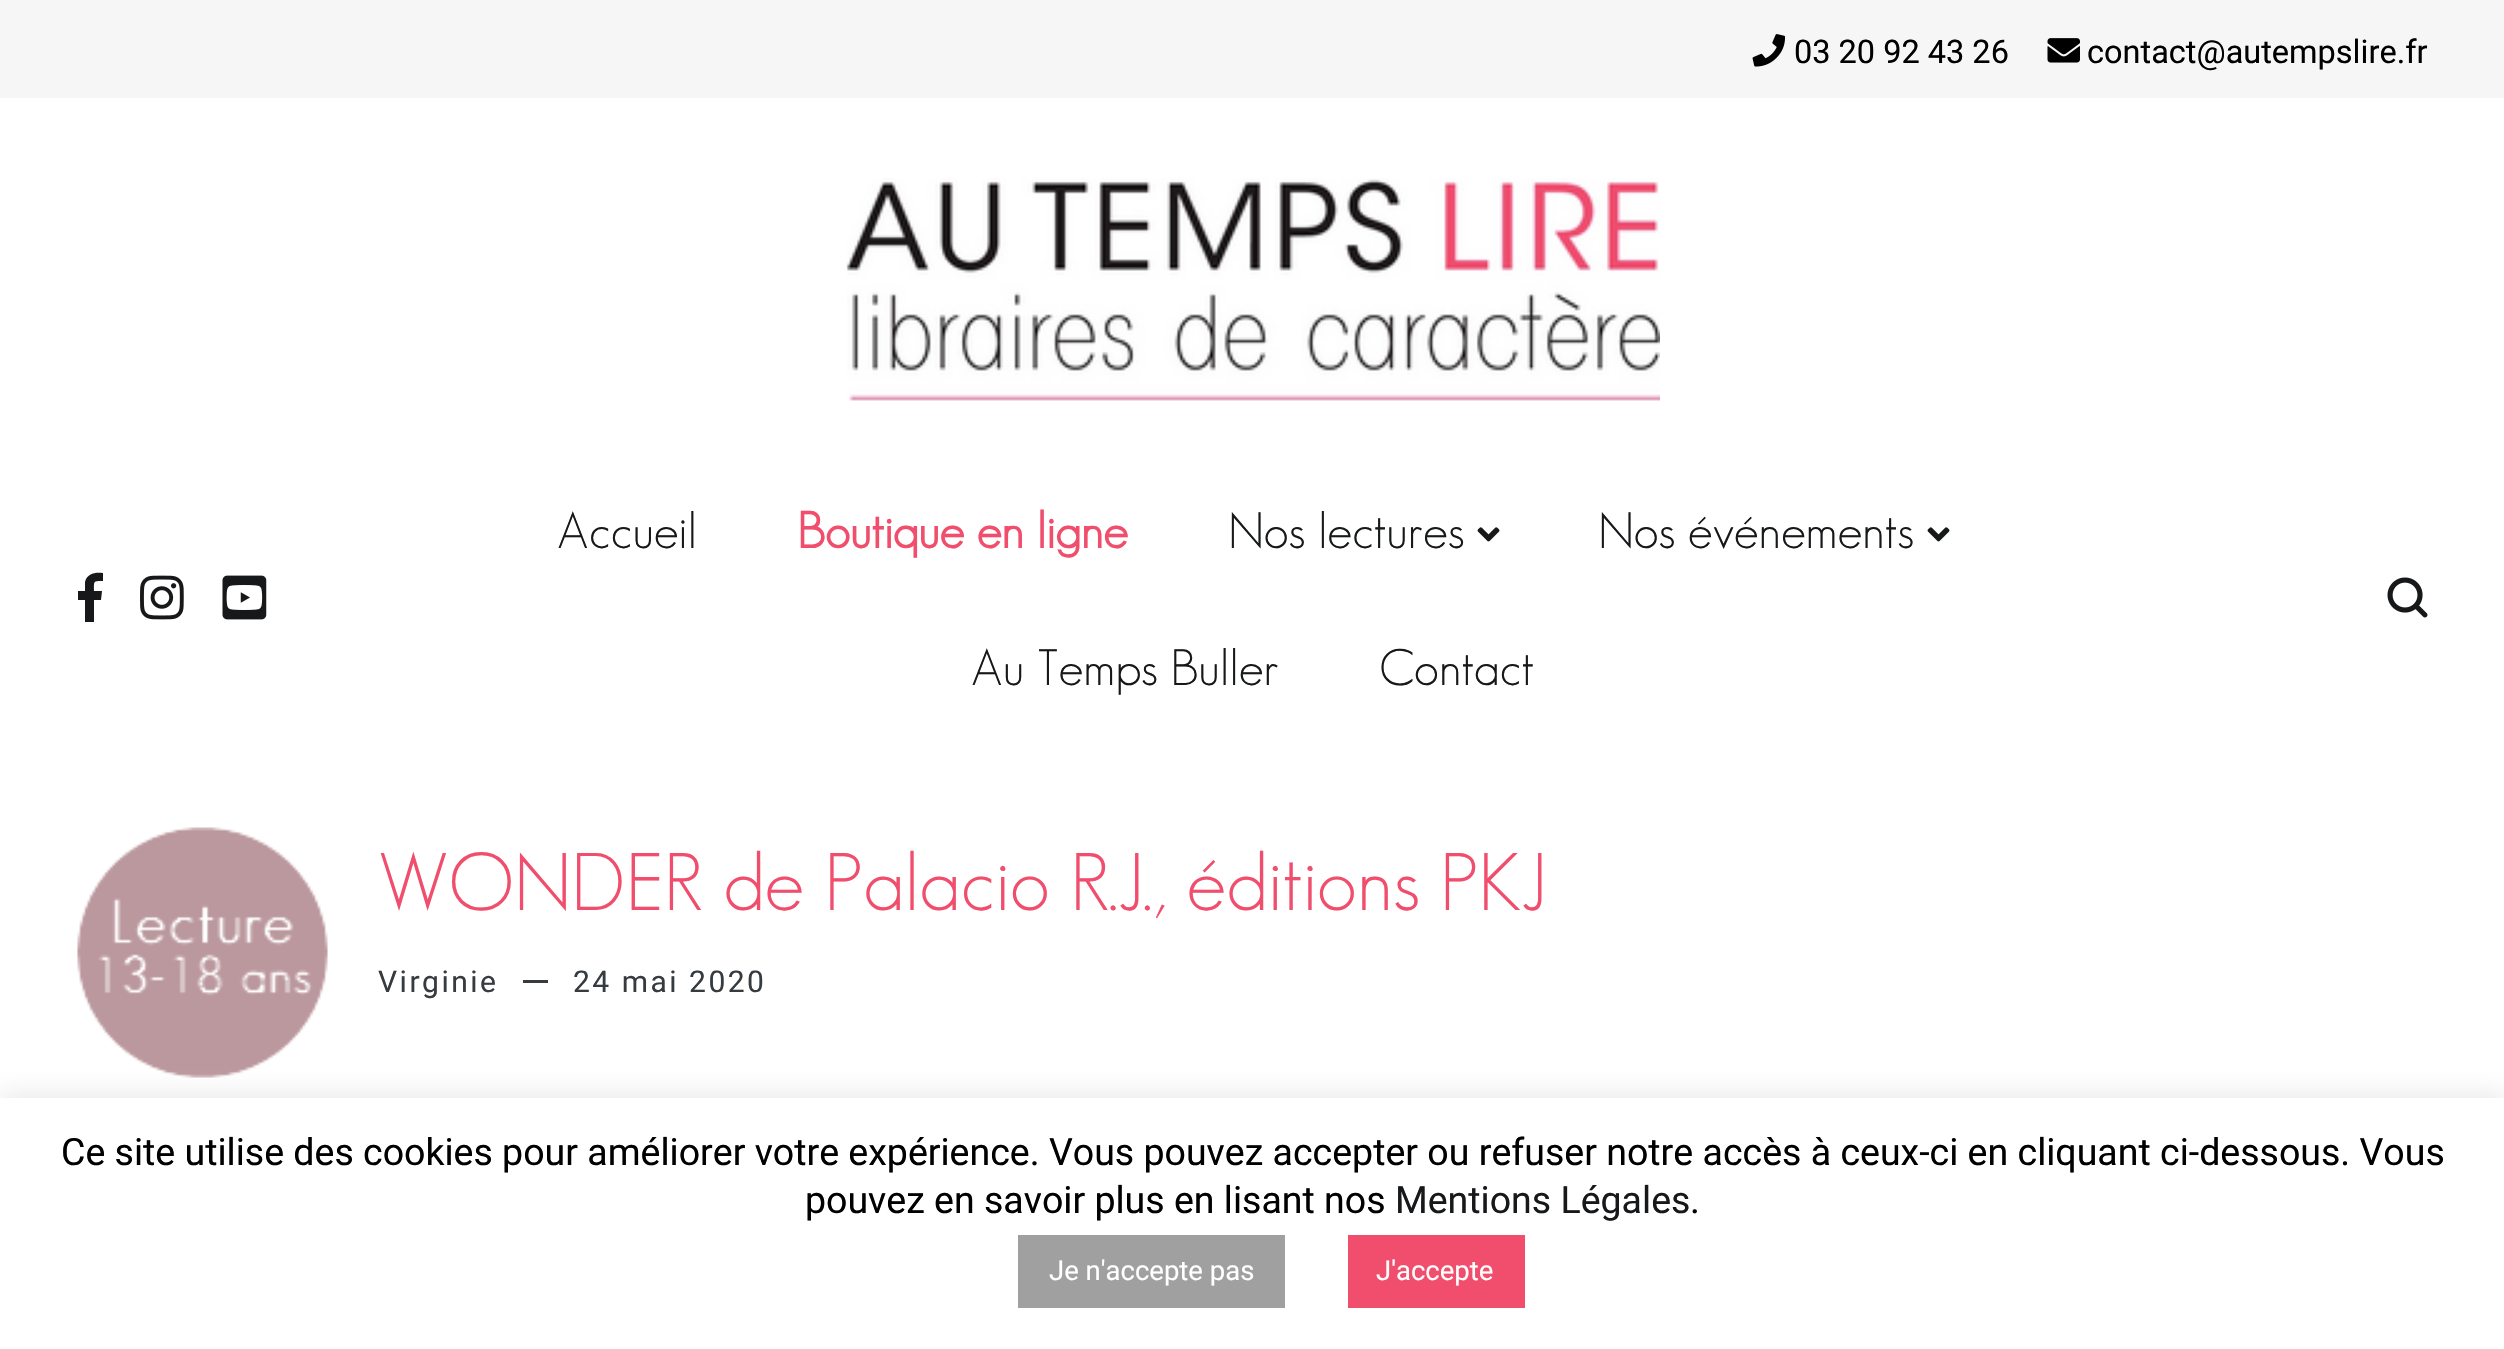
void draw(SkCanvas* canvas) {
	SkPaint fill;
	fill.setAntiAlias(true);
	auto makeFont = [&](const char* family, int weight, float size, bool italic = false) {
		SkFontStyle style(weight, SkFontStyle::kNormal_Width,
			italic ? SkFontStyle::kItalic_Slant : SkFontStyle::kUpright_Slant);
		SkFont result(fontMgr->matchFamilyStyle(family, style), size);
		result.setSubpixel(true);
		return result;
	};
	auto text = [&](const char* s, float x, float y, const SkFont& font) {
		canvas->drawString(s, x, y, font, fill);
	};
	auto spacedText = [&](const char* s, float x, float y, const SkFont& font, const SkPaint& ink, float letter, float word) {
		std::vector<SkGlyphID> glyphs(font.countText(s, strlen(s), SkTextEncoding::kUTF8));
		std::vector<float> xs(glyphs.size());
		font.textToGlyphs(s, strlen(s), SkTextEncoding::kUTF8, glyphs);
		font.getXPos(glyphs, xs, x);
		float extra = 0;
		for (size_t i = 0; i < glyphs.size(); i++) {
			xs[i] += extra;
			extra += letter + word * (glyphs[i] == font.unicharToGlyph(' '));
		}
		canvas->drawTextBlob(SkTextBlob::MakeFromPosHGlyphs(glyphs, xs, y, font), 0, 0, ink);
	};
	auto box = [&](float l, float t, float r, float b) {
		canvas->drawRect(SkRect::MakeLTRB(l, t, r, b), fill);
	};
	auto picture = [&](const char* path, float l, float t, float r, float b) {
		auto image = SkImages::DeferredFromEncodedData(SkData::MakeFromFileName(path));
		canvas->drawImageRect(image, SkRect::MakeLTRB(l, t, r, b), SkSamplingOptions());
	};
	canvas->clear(0xFFFFFFFF);
	fill.setColor(0xFFF6F6F6);
	box(0, 0, 2504, 98);
	picture("image0.png", 1752, 34, 1786, 67);
	picture("image1.png", 2047, 38, 2080, 63);
	picture("image2.png", 846, 178, 1660, 401);
	fill.setColor(0xFF16181A);
	canvas->drawPath(SkPathBuilder().moveTo(85, 622).lineTo(85, 600).lineTo(78, 600).lineTo(78, 591).lineTo(85, 591).lineTo(85, 582).cubicTo(87, 573, 96, 572, 103, 573).lineTo(103, 581).cubicTo(93, 581, 94, 581, 94, 591).lineTo(102, 591).lineTo(101, 600).lineTo(94, 600).lineTo(94, 622).close().detach(), fill);
	picture("image3.png", 140, 575, 184, 620);
	picture("image4.png", 222, 575, 267, 620);
	picture("image5.png", 1477, 527, 1500, 542);
	picture("image5.png", 1927, 527, 1950, 542);
	picture("image6.png", 2387, 577, 2428, 618);
	picture("image7.png", 77, 827, 328, 1078);
	fill.setColor(0xFF363B40);
	box(523, 980, 548, 983);
	fill.setColor(0x4DACABAB);
	fill.setMaskFilter(SkMaskFilter::MakeBlur(kNormal_SkBlurStyle, 12.5f));
	canvas->drawRect(SkRect::MakeLTRB(0, 1095, 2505, 1348), fill);
	fill.setMaskFilter(nullptr);
	fill.setColor(0xFFFFFFFF);
	box(0, 1098, 2504, 1349);
	fill.setColor(0xFFA0A0A0);
	box(1018, 1235, 1285, 1308);
	fill.setColor(0xFFF04E6C);
	box(1348, 1235, 1525, 1308);
	auto font1 = makeFont("Roboto", 400, 32.5f);
	fill.setColor(0xFF000000);
	text("03 20 92 43 26", 1794, 63, font1);
	text("contact@autempslire.fr", 2087, 63, font1);
	auto font2 = makeFont("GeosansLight", 300, 50);
	fill.setColor(0xFF16181A);
	text("Accueil", 557, 548, font2);
	auto font3 = makeFont("GeosansLight", 700, 50);
	fill.setColor(0xFFF04E6C);
	text("Boutique en ligne", 797, 548, font3);
	fill.setColor(0xFF16181A);
	text("Nos lectures", 1228, 548, font2);
	text("Nos événements", 1598, 548, font2);
	text("Au Temps Buller", 971, 685, font2);
	text("Contact", 1379, 685, font2);
	auto font4 = makeFont("GeosansLight", 300, 80);
	fill.setColor(0xFFF04E6C);
	text("WONDER de Palacio R.J., éditions PKJ", 378, 910, font4);
	auto font5 = makeFont("Roboto", 400, 30);
	fill.setColor(0xFF363B40);
	spacedText("Virginie", 378, 992, font5, fill, 2.5f, 0);
	spacedText("24 mai 2020", 573, 992, font5, fill, 2.5f, 0);
	auto font6 = makeFont("Roboto", 400, 37.5f);
	fill.setColor(0xFF000000);
	text("Ce site utilise des cookies pour améliorer votre expérience. Vous pouvez accepter ou refuser notre accès à ceux-ci en cliquant ci-dessous. Vous", 61, 1165, font6);
	text("pouvez en savoir plus en lisant nos", 805, 1213, font6);
	fill.setColor(0xFF16181A);
	text("Mentions Légales", 1395, 1213, font6);
	fill.setColor(0xFF000000);
	text(".", 1690, 1213, font6);
	auto font7 = makeFont("Roboto", 400, 27.5f);
	fill.setColor(0xFFFFFFFF);
	text("Je n'accepte pas", 1049, 1280, font7);
	text("J'accepte", 1376, 1280, font7);
}
